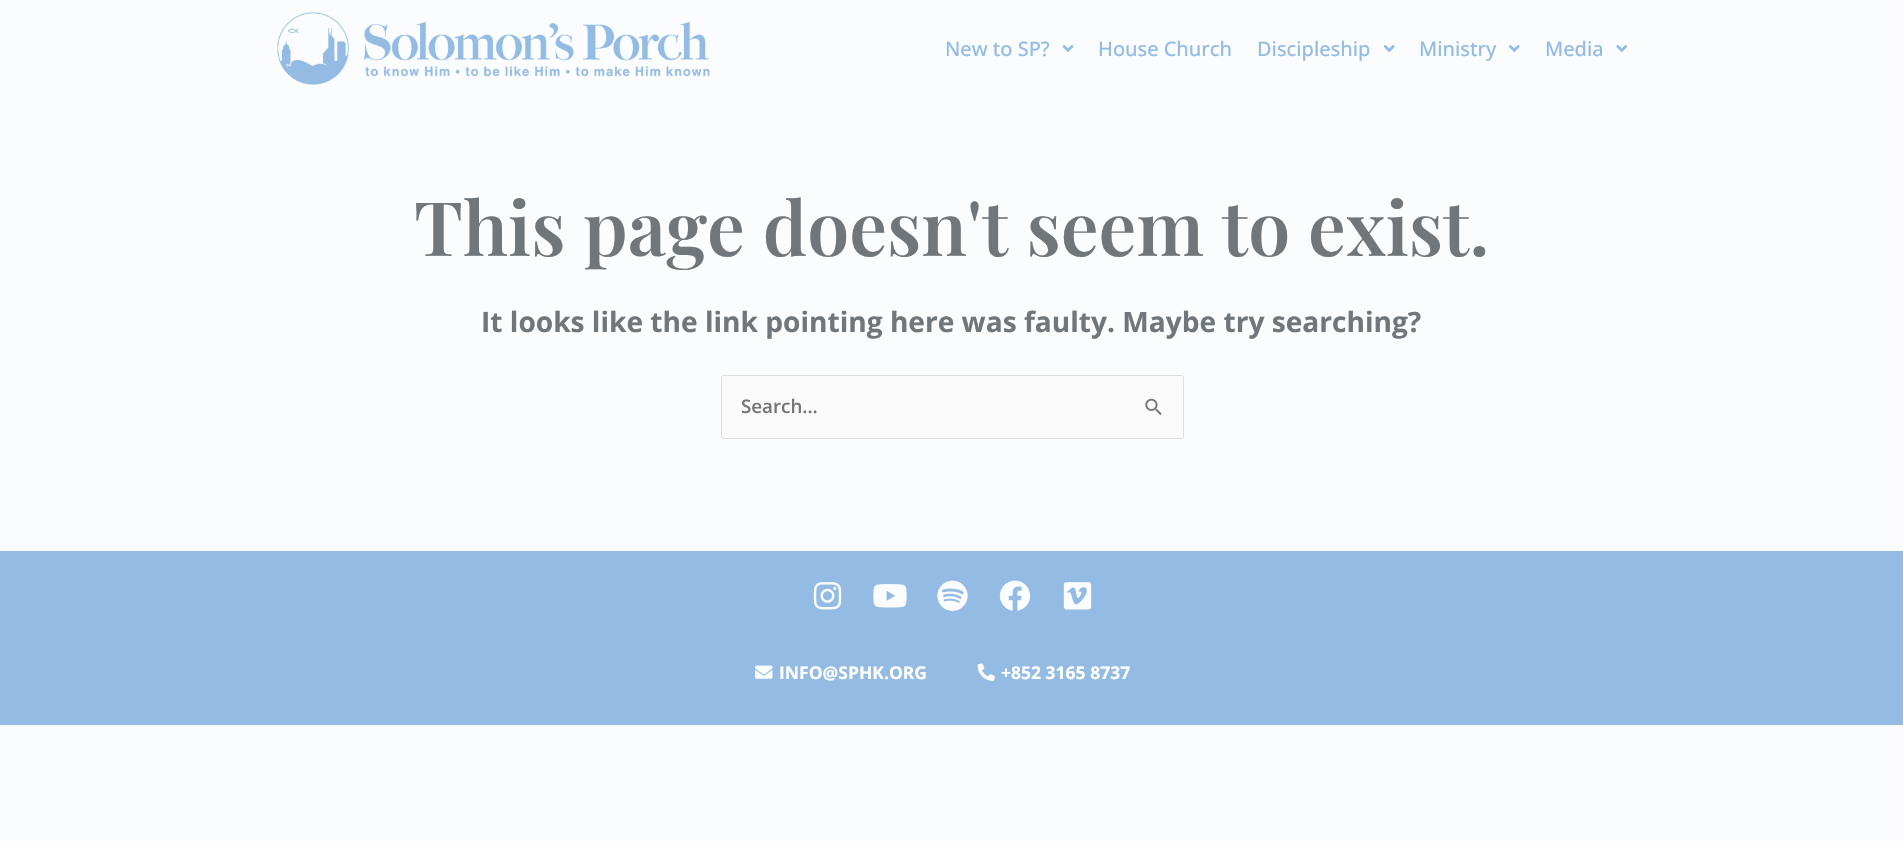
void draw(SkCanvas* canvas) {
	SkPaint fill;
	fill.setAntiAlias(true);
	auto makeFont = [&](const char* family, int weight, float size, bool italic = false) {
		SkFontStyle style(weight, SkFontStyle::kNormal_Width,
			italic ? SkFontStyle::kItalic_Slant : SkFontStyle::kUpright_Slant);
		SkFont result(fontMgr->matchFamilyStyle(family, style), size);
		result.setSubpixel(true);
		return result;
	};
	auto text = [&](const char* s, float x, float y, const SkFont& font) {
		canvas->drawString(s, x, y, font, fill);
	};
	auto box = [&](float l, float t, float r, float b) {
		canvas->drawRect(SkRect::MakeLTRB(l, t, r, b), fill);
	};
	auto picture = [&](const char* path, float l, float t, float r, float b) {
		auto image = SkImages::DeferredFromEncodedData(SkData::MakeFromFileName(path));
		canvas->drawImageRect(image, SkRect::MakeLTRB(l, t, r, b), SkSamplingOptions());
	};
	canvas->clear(0xFFFAFCFE);
	picture("image0.png", 277, 12, 710, 85);
	picture("image1.png", 1062, 45, 1074, 52);
	picture("image2.png", 1383, 45, 1395, 52);
	picture("image2.png", 1508, 45, 1520, 52);
	picture("image3.png", 1616, 45, 1628, 52);
	fill.setColor(0xFFFAFAFA);
	canvas->drawRoundRect(SkRect::MakeLTRB(721.5f, 375.5f, 1183.5f, 438.5f), 2, 2, fill);
	fill.setStyle(SkPaint::kStroke_Style);
	fill.setStrokeWidth(1);
	fill.setColor(0xFFDDDDDD);
	canvas->drawRoundRect(SkRect::MakeLTRB(721.5f, 375.5f, 1183.5f, 438.5f), 2, 2, fill);
	picture("image4.png", 1145, 398, 1162, 415);
	fill.setStyle(SkPaint::kFill_Style);
	fill.setColor(0xFF93BBE3);
	box(0, 551, 1903, 725);
	picture("image5.png", 813, 582, 842, 610);
	picture("image6.png", 873, 584, 907, 608);
	picture("image7.png", 937, 580, 968, 611);
	picture("image8.png", 999, 580, 1031, 611);
	picture("image9.png", 1063, 582, 1092, 610);
	picture("image10.png", 755, 665, 773, 679);
	picture("image11.png", 977, 663, 995, 681);
	auto font1 = makeFont("Open Sans", 500, 20);
	text("New to SP?", 945, 56, font1);
	text("House Church", 1098, 56, font1);
	text("Discipleship", 1257, 56, font1);
	text("Ministry", 1419, 56, font1);
	text("Media", 1545, 56, font1);
	auto font2 = makeFont("Playfair Display", 600, 75);
	fill.setColor(0xFF71767B);
	text("This page doesn't seem to exist.", 414, 256, font2);
	auto font3 = makeFont("Open Sans", 700, 28.1f);
	text("It looks like the link pointing here was faulty. Maybe try searching?", 481, 332, font3);
	auto font4 = makeFont("Open Sans", 600, 18.75f);
	fill.setColor(0xFF757575);
	text("Search...", 741, 413, font4);
	auto font5 = makeFont("Open Sans", 700, 17.5f);
	fill.setColor(0xFFFFFFFF);
	text("INFO@SPHK.ORG", 779, 679, font5);
	text("+852 3165 8737", 1001, 679, font5);
}
